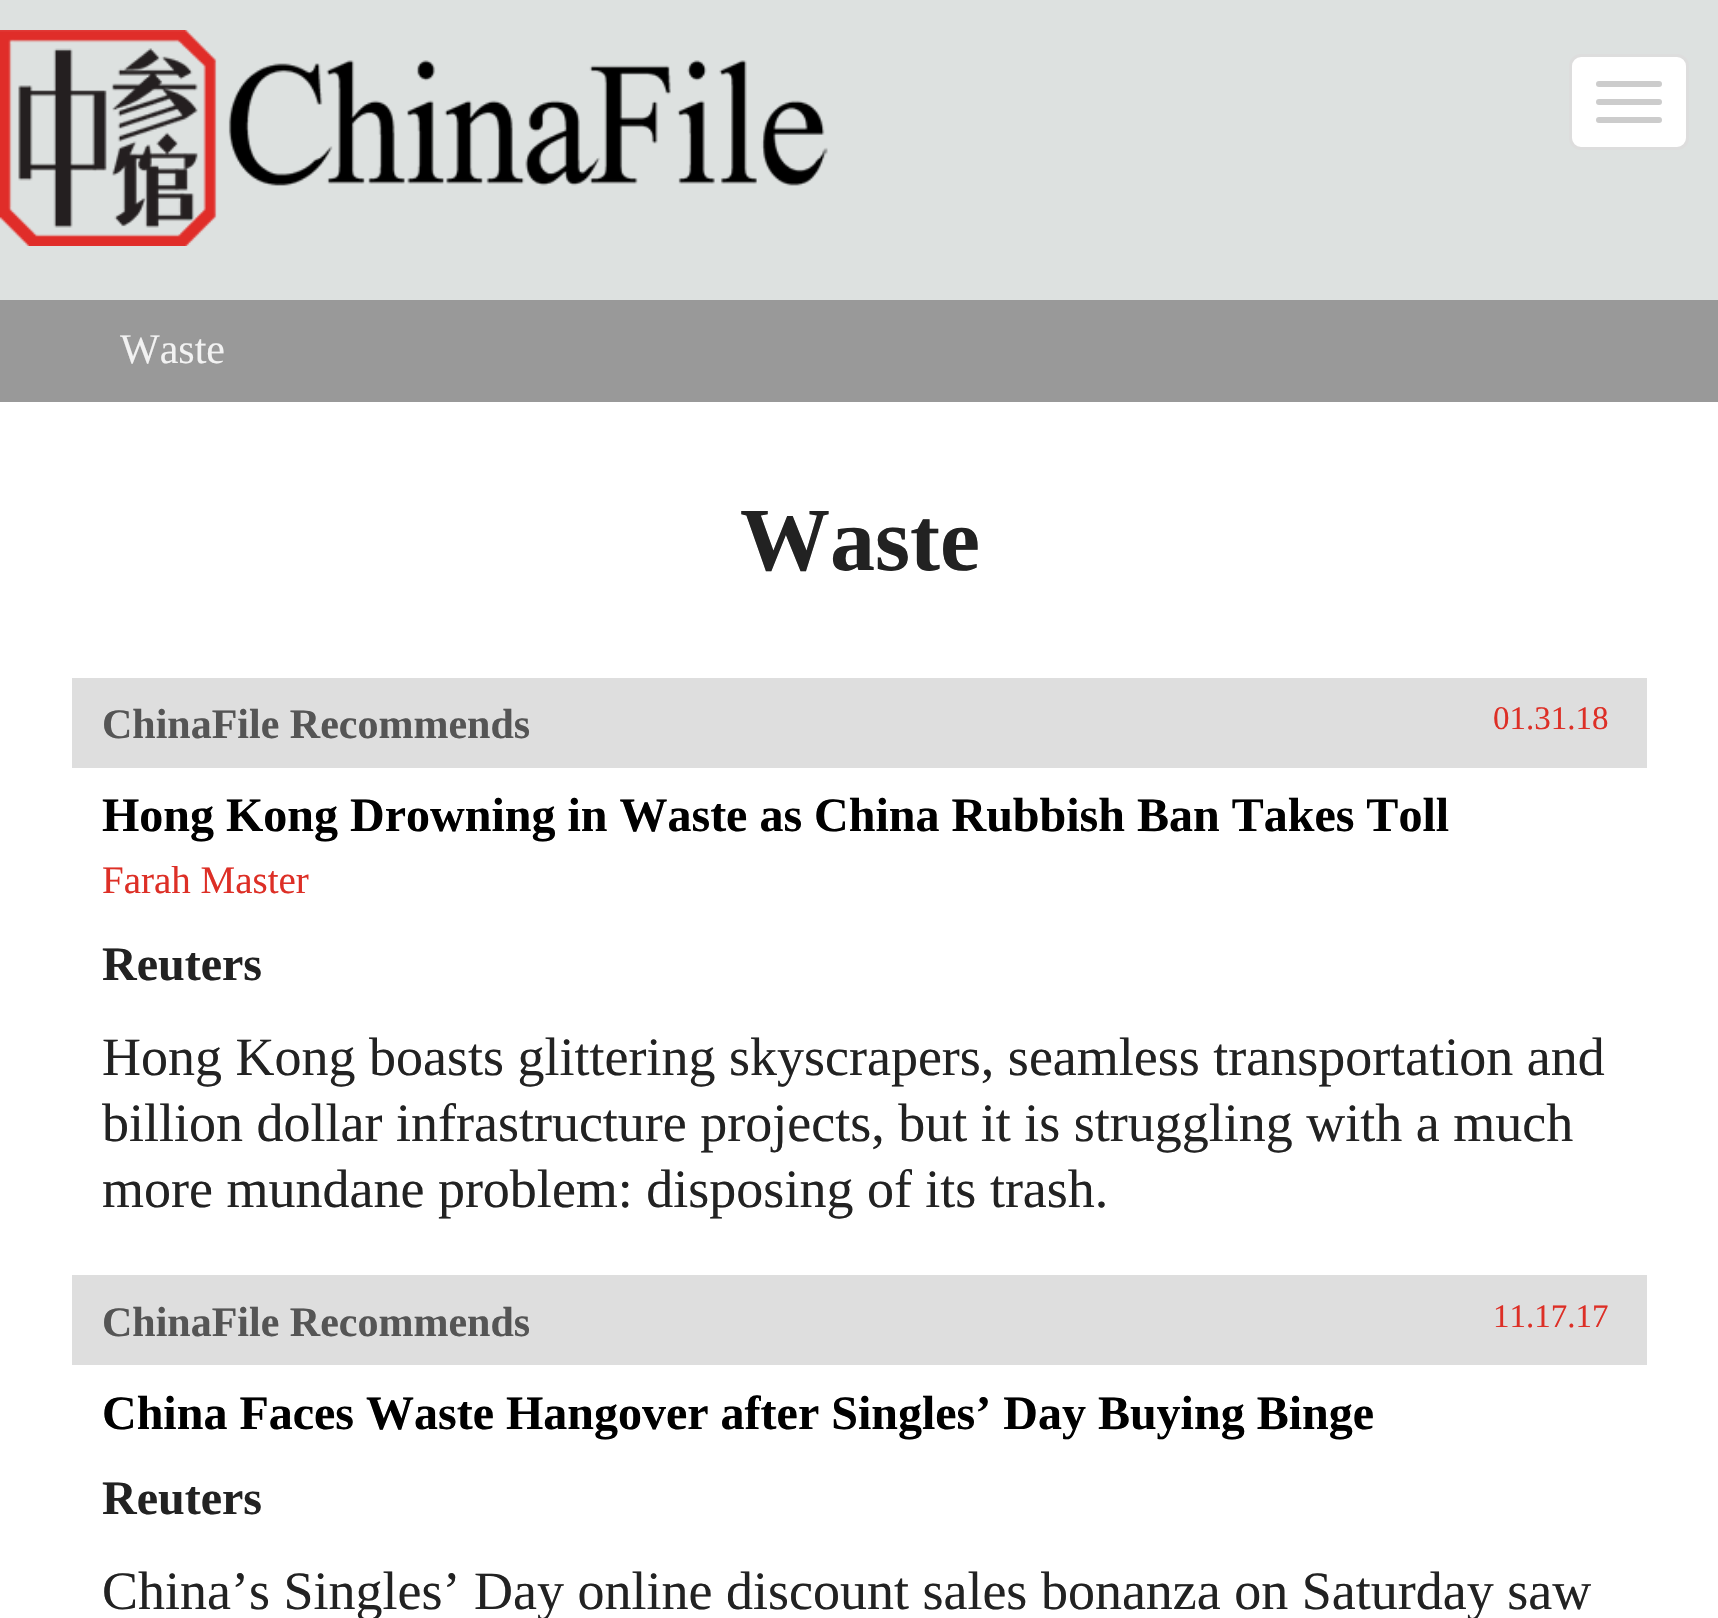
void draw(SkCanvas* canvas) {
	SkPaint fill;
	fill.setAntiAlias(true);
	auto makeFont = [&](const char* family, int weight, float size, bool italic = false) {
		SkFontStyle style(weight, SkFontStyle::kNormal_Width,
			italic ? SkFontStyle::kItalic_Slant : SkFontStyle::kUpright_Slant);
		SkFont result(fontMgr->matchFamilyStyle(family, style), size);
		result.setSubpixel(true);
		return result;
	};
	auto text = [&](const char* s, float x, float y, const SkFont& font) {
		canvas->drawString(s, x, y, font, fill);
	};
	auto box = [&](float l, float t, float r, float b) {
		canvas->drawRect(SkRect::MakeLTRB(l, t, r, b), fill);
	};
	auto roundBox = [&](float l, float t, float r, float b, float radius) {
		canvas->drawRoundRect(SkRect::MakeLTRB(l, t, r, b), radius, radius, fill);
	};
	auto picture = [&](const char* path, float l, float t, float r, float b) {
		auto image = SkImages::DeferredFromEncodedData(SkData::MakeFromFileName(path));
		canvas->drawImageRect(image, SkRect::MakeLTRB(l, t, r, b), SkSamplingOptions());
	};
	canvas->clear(0xFFFFFFFF);
	fill.setColor(0xFFDDE1E0);
	box(0, 0, 1718, 300);
	picture("image0.png", 0, 30, 828, 246);
	fill.setColor(0xFFFFFFFF);
	canvas->drawRoundRect(SkRect::MakeLTRB(1570.5f, 55.5f, 1687.5f, 148.5f), 10.5f, 10.5f, fill);
	fill.setStyle(SkPaint::kStroke_Style);
	fill.setStrokeWidth(3);
	fill.setColor(0xFFDDDDDD);
	canvas->drawRoundRect(SkRect::MakeLTRB(1570.5f, 55.5f, 1687.5f, 148.5f), 10.5f, 10.5f, fill);
	fill.setStyle(SkPaint::kFill_Style);
	fill.setColor(0xFFCCCCCC);
	roundBox(1596, 81, 1662, 87, 3);
	roundBox(1596, 99, 1662, 105, 3);
	roundBox(1596, 117, 1662, 123, 3);
	fill.setColor(0xFF999999);
	box(0, 300, 1718, 402);
	fill.setColor(0xFFDEDEDE);
	box(72, 678, 1647, 768);
	box(72, 1275, 1647, 1365);
	auto font1 = makeFont("Liberation Serif", 400, 42);
	fill.setColor(0xFFF2F2F2);
	text("Waste", 120, 363, font1);
	auto font2 = makeFont("Liberation Serif", 700, 90);
	fill.setColor(0xFF222222);
	text("Waste", 740, 570, font2);
	auto font3 = makeFont("Liberation Serif", 700, 42);
	fill.setColor(0xFF555555);
	text("ChinaFile Recommends", 102, 738, font3);
	auto font4 = makeFont("Liberation Serif", 400, 33);
	fill.setColor(0xFFDD2F26);
	text("01.31.18", 1493, 729, font4);
	auto font5 = makeFont("Liberation Serif", 700, 48);
	fill.setColor(0xFF000000);
	text("Hong Kong Drowning in Waste as China Rubbish Ban Takes Toll", 102, 831, font5);
	auto font6 = makeFont("Liberation Serif", 400, 39);
	fill.setColor(0xFFDD2F26);
	text("Farah Master", 102, 893, font6);
	fill.setColor(0xFF222222);
	text("Reuters", 102, 980, font5);
	auto font7 = makeFont("Liberation Serif", 400, 54);
	text("Hong Kong boasts glittering skyscrapers, seamless transportation and", 102, 1075, font7);
	text("billion dollar infrastructure projects, but it is struggling with a much", 102, 1141, font7);
	text("more mundane problem: disposing of its trash.", 102, 1207, font7);
	fill.setColor(0xFF555555);
	text("ChinaFile Recommends", 102, 1336, font3);
	fill.setColor(0xFFDD2F26);
	text("11.17.17", 1493, 1327, font4);
	fill.setColor(0xFF000000);
	text("China Faces Waste Hangover after Singles’ Day Buying Binge", 102, 1429, font5);
	fill.setColor(0xFF222222);
	text("Reuters", 102, 1514, font5);
	text("China’s Singles’ Day online discount sales bonanza on Saturday saw", 102, 1609, font7);
}
